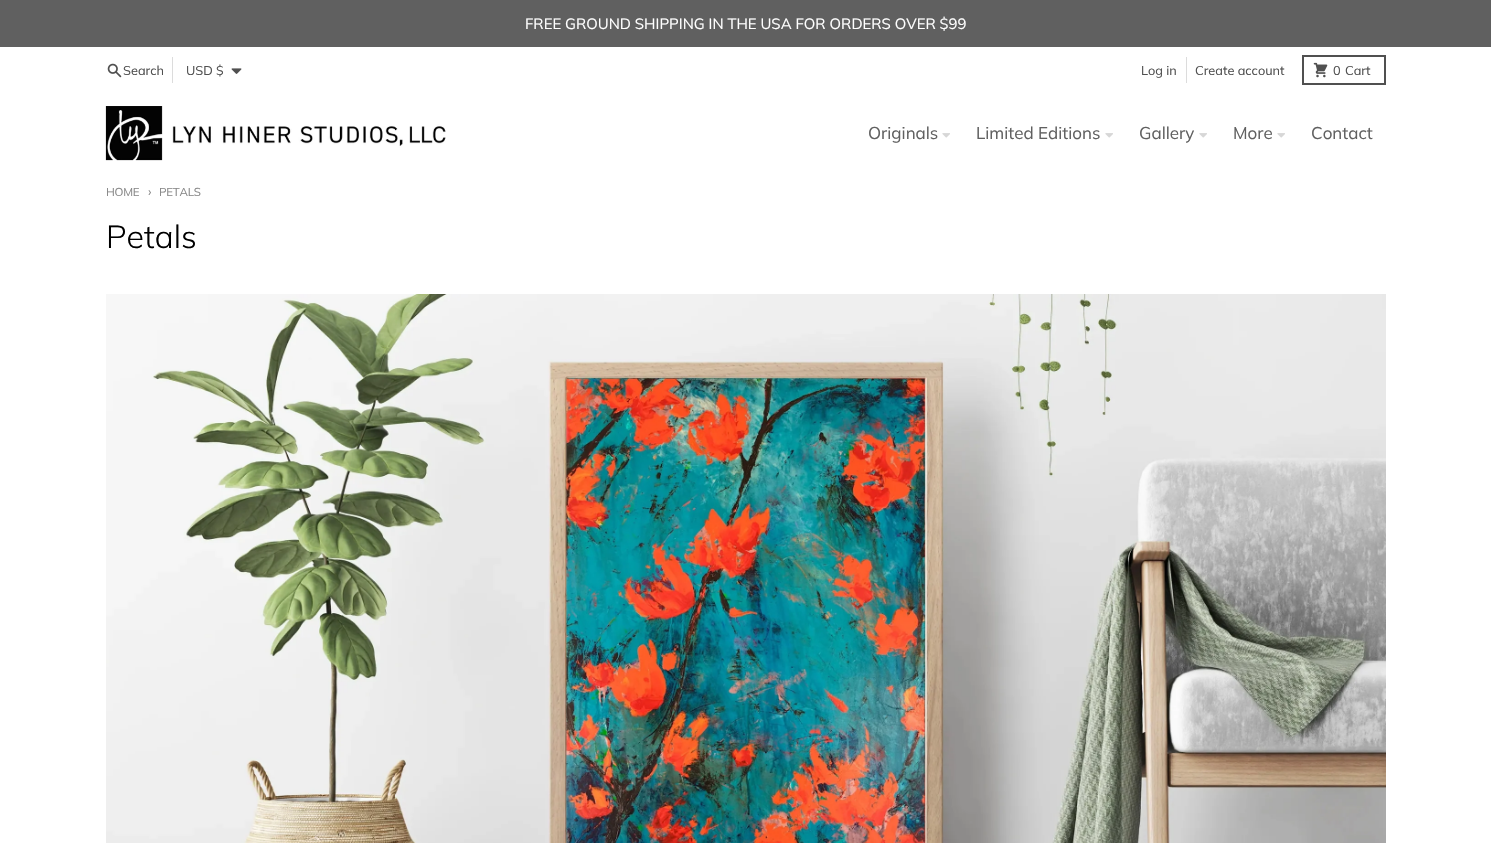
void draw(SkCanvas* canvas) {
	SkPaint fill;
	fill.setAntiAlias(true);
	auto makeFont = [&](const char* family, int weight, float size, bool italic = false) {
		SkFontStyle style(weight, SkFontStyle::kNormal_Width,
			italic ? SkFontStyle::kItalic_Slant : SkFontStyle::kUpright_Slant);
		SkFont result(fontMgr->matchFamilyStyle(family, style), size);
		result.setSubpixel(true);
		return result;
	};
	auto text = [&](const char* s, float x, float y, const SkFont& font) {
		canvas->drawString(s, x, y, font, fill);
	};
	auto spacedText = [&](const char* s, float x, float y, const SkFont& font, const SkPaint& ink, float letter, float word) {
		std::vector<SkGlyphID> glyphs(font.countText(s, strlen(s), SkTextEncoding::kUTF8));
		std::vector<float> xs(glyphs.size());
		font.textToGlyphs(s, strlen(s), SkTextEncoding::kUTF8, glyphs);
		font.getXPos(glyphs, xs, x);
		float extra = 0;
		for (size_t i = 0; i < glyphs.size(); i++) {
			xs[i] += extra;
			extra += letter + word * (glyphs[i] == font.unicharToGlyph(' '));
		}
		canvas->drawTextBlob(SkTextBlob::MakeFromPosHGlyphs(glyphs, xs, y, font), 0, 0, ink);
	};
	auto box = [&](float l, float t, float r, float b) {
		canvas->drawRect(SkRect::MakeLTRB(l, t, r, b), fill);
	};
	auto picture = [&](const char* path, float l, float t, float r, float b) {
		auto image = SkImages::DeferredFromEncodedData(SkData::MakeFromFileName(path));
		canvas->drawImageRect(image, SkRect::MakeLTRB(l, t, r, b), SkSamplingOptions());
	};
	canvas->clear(0xFFFFFFFF);
	fill.setColor(0xFF606060);
	box(0, 0, 1491, 47);
	picture("image0.png", 107, 63, 122, 78);
	fill.setColor(0xFFDCDCDC);
	box(172, 57, 173, 83);
	picture("image1.png", 231, 68, 242, 74);
	box(1186, 57, 1187, 83);
	fill.setStyle(SkPaint::kStroke_Style);
	fill.setStrokeWidth(2);
	fill.setColor(0xFF505050);
	canvas->drawRect(SkRect::MakeLTRB(1303, 56, 1385, 84), fill);
	picture("image2.png", 1313, 62, 1328, 78);
	picture("image3.png", 105, 106, 446, 161);
	picture("image4.png", 942, 133, 950, 138);
	picture("image4.png", 1105, 133, 1113, 138);
	picture("image4.png", 1199, 133, 1207, 138);
	picture("image4.png", 1277, 133, 1285, 138);
	picture("image5.png", 106, 294, 1386, 843);
	auto font1 = makeFont("Muli", 400, 14.9f);
	fill.setStyle(SkPaint::kFill_Style);
	fill.setColor(0xFFFFFFFF);
	text("FREE GROUND SHIPPING IN THE USA FOR ORDERS OVER $99", 525, 29, font1);
	auto font2 = makeFont("Muli", 400, 12.75f);
	fill.setColor(0xFF505050);
	text("Search", 123, 75, font2);
	text("USD $", 186, 75, font2);
	text("Log in", 1141, 75, font2);
	text("Create account", 1195, 75, font2);
	text("0", 1333, 75, font2);
	text("Cart", 1345, 75, font2);
	auto font3 = makeFont("Muli", 400, 17);
	fill.setColor(0xFF606060);
	text("Originals", 868, 139, font3);
	text("Limited Editions", 976, 139, font3);
	text("Gallery", 1139, 139, font3);
	text("More", 1233, 139, font3);
	text("Contact", 1311, 139, font3);
	auto font4 = makeFont("Muli", 400, 11.5f);
	fill.setColor(0xFF888888);
	spacedText("HOME", 106, 196, font4, fill, -0.25f, 0);
	spacedText("›", 148, 196, font2, fill, -0.25f, 0);
	spacedText("PETALS", 159, 196, font4, fill, -0.25f, 0);
	auto font5 = makeFont("Muli", 300, 32);
	fill.setColor(0xFF000000);
	text("Petals", 106, 248, font5);
}
